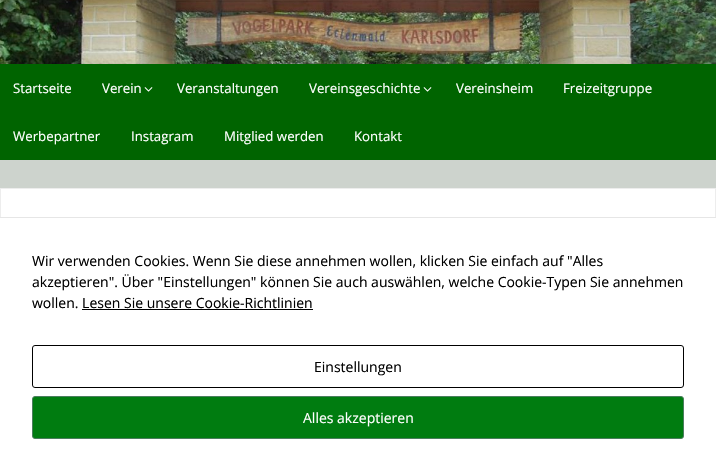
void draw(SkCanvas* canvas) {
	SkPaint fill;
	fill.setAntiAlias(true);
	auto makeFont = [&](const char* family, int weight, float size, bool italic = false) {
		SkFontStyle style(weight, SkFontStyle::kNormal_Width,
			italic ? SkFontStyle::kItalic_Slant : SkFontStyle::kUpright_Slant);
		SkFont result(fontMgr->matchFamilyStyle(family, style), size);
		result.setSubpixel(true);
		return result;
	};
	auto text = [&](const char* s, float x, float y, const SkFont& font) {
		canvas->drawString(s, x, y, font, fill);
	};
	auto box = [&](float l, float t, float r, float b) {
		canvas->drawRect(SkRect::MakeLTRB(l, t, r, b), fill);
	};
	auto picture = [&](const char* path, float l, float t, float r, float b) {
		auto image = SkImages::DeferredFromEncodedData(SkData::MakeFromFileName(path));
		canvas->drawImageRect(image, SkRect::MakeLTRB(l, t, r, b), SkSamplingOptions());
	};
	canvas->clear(0xFFCDD3CD);
	picture("image0.png", 0, 0, 716, 64);
	fill.setColor(0xFF006400);
	box(0, 64, 716, 160);
	picture("image1.png", 144, 87, 153, 92);
	picture("image1.png", 423, 87, 432, 92);
	fill.setColor(0xFFFFFFFF);
	box(1, 189, 715, 217);
	fill.setStyle(SkPaint::kStroke_Style);
	fill.setStrokeWidth(1);
	fill.setColor(0xFFEDEDED);
	canvas->drawRect(SkRect::MakeLTRB(0.5f, 188.5f, 715.5f, 313.5f), fill);
	fill.setStyle(SkPaint::kFill_Style);
	fill.setColor(0xFFFFFFFF);
	box(0, 218, 716, 471);
	fill.setColor(0xFFE6E6E6);
	box(0, 217, 716, 218);
	fill.setColor(0xFF000000);
	box(82, 309, 313, 310);
	fill.setStyle(SkPaint::kStroke_Style);
	canvas->drawRoundRect(SkRect::MakeLTRB(32.5f, 345.5f, 683.5f, 387.5f), 2.5f, 2.5f, fill);
	fill.setStyle(SkPaint::kFill_Style);
	fill.setColor(0xFF007C10);
	canvas->drawRoundRect(SkRect::MakeLTRB(32.5f, 396.5f, 683.5f, 438.5f), 2.5f, 2.5f, fill);
	fill.setStyle(SkPaint::kStroke_Style);
	fill.setColor(0xFF4B7D5E);
	canvas->drawRoundRect(SkRect::MakeLTRB(32.5f, 396.5f, 683.5f, 438.5f), 2.5f, 2.5f, fill);
	auto font1 = makeFont("Open Sans", 400, 13.25f);
	fill.setStyle(SkPaint::kFill_Style);
	fill.setColor(0xFFFFFFFF);
	text("Startseite", 13, 93, font1);
	text("Verein", 102, 93, font1);
	text("Veranstaltungen", 177, 93, font1);
	text("Vereinsgeschichte", 309, 93, font1);
	text("Vereinsheim", 456, 93, font1);
	text("Freizeitgruppe", 563, 93, font1);
	text("Werbepartner", 13, 141, font1);
	text("Instagram", 131, 141, font1);
	text("Mitglied werden", 224, 141, font1);
	text("Kontakt", 354, 141, font1);
	auto font2 = makeFont("Open Sans", 400, 14);
	fill.setColor(0xFF000000);
	text("Wir verwenden Cookies. Wenn Sie diese annehmen wollen, klicken Sie einfach auf \"Alles", 32, 266, font2);
	text("akzeptieren\". Über \"Einstellungen\" können Sie auch auswählen, welche Cookie-Typen Sie annehmen", 32, 287, font2);
	text("wollen. Lesen Sie unsere Cookie-Richtlinien", 32, 308, font2);
	text("Einstellungen", 314, 372, font2);
	fill.setColor(0xFFFFFFFF);
	text("Alles akzeptieren", 303, 423, font2);
}
